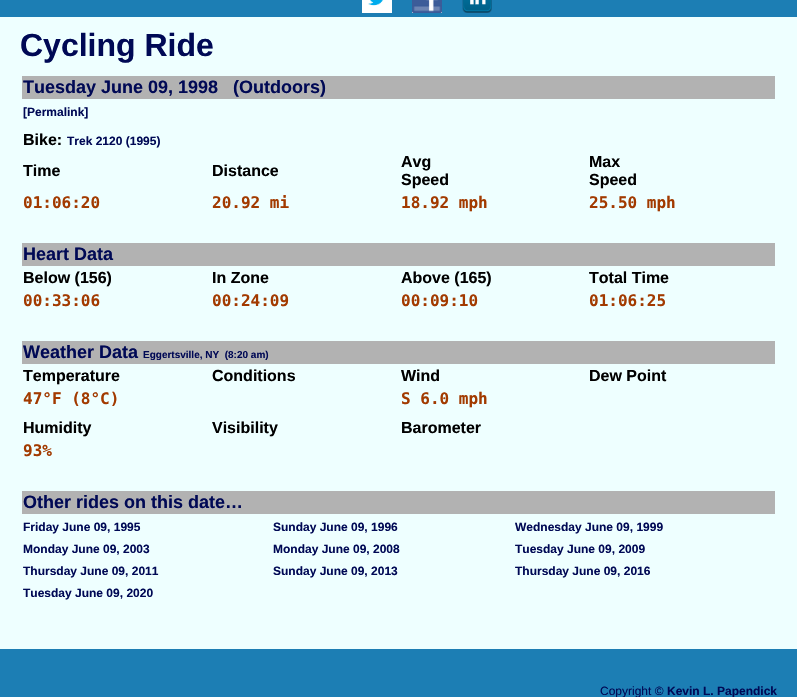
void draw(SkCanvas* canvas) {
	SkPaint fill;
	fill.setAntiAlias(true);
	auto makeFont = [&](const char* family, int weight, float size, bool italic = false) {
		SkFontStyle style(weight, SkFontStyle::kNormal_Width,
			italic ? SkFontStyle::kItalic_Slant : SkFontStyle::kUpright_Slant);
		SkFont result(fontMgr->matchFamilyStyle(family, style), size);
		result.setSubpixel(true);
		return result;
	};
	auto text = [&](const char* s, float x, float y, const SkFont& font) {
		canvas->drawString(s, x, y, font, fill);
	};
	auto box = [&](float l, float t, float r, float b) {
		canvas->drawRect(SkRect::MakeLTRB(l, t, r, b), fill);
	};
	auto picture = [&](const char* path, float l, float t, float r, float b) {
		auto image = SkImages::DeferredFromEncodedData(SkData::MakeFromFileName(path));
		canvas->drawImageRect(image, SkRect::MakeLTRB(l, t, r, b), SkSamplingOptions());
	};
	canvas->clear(0xFFEEFFFF);
	fill.setColor(0xFF1C7EB4);
	box(0, 0, 797, 17);
	picture("image0.png", 362, 0, 392, 13);
	picture("image1.png", 412, 0, 442, 13);
	picture("image2.png", 462, 0, 492, 13);
	fill.setColor(0xFFB2B2B2);
	box(22, 76, 775, 99);
	box(22, 243, 775, 266);
	box(22, 341, 775, 364);
	box(22, 491, 775, 514);
	fill.setColor(0xFF1C7EB4);
	box(0, 649, 797, 697);
	auto font1 = makeFont("Liberation Sans", 700, 32);
	fill.setColor(0xFF000955);
	text("Cycling Ride", 20, 56, font1);
	auto font2 = makeFont("Liberation Sans", 700, 18);
	text("Tuesday June 09, 1998   (Outdoors)", 23, 93, font2);
	auto font3 = makeFont("Liberation Sans", 700, 12);
	text("[Permalink]", 23, 116, font3);
	auto font4 = makeFont("Liberation Sans", 700, 16);
	fill.setColor(0xFF000000);
	text("Bike:", 23, 145, font4);
	fill.setColor(0xFF000955);
	text("Trek 2120 (1995)", 67, 145, font3);
	fill.setColor(0xFF000000);
	text("Time", 23, 176, font4);
	text("Distance", 212, 176, font4);
	text("Avg", 401, 167, font4);
	text("Speed", 401, 185, font4);
	text("Max", 589, 167, font4);
	text("Speed", 589, 185, font4);
	auto font5 = makeFont("DejaVu Sans Mono", 700, 16);
	fill.setColor(0xFFA23A00);
	text("01:06:20", 23, 208, font5);
	text("20.92 mi", 212, 208, font5);
	text("18.92 mph", 401, 208, font5);
	text("25.50 mph", 589, 208, font5);
	fill.setColor(0xFF000955);
	text("Heart Data", 23, 260, font2);
	fill.setColor(0xFF000000);
	text("Below (156)", 23, 283, font4);
	text("In Zone", 212, 283, font4);
	text("Above (165)", 401, 283, font4);
	text("Total Time", 589, 283, font4);
	fill.setColor(0xFFA23A00);
	text("00:33:06", 23, 306, font5);
	text("00:24:09", 212, 306, font5);
	text("00:09:10", 401, 306, font5);
	text("01:06:25", 589, 306, font5);
	fill.setColor(0xFF000955);
	text("Weather Data", 23, 358, font2);
	auto font6 = makeFont("Liberation Sans", 700, 10);
	text("Eggertsville, NY  (8:20 am)", 143, 358, font6);
	fill.setColor(0xFF000000);
	text("Temperature", 23, 381, font4);
	text("Conditions", 212, 381, font4);
	text("Wind", 401, 381, font4);
	text("Dew Point", 589, 381, font4);
	fill.setColor(0xFFA23A00);
	text("47°F (8°C)", 23, 404, font5);
	text("S 6.0 mph", 401, 404, font5);
	fill.setColor(0xFF000000);
	text("Humidity", 23, 433, font4);
	text("Visibility", 212, 433, font4);
	text("Barometer", 401, 433, font4);
	fill.setColor(0xFFA23A00);
	text("93%", 23, 456, font5);
	fill.setColor(0xFF000955);
	text("Other rides on this date…", 23, 508, font2);
	text("Friday June 09, 1995", 23, 531, font3);
	text("Sunday June 09, 1996", 273, 531, font3);
	text("Wednesday June 09, 1999", 515, 531, font3);
	text("Monday June 09, 2003", 23, 553, font3);
	text("Monday June 09, 2008", 273, 553, font3);
	text("Tuesday June 09, 2009", 515, 553, font3);
	text("Thursday June 09, 2011", 23, 575, font3);
	text("Sunday June 09, 2013", 273, 575, font3);
	text("Thursday June 09, 2016", 515, 575, font3);
	text("Tuesday June 09, 2020", 23, 597, font3);
	auto font7 = makeFont("Liberation Sans", 400, 12);
	text("Copyright ©", 600, 695, font7);
	text("Kevin L. Papendick", 667, 695, font3);
}
